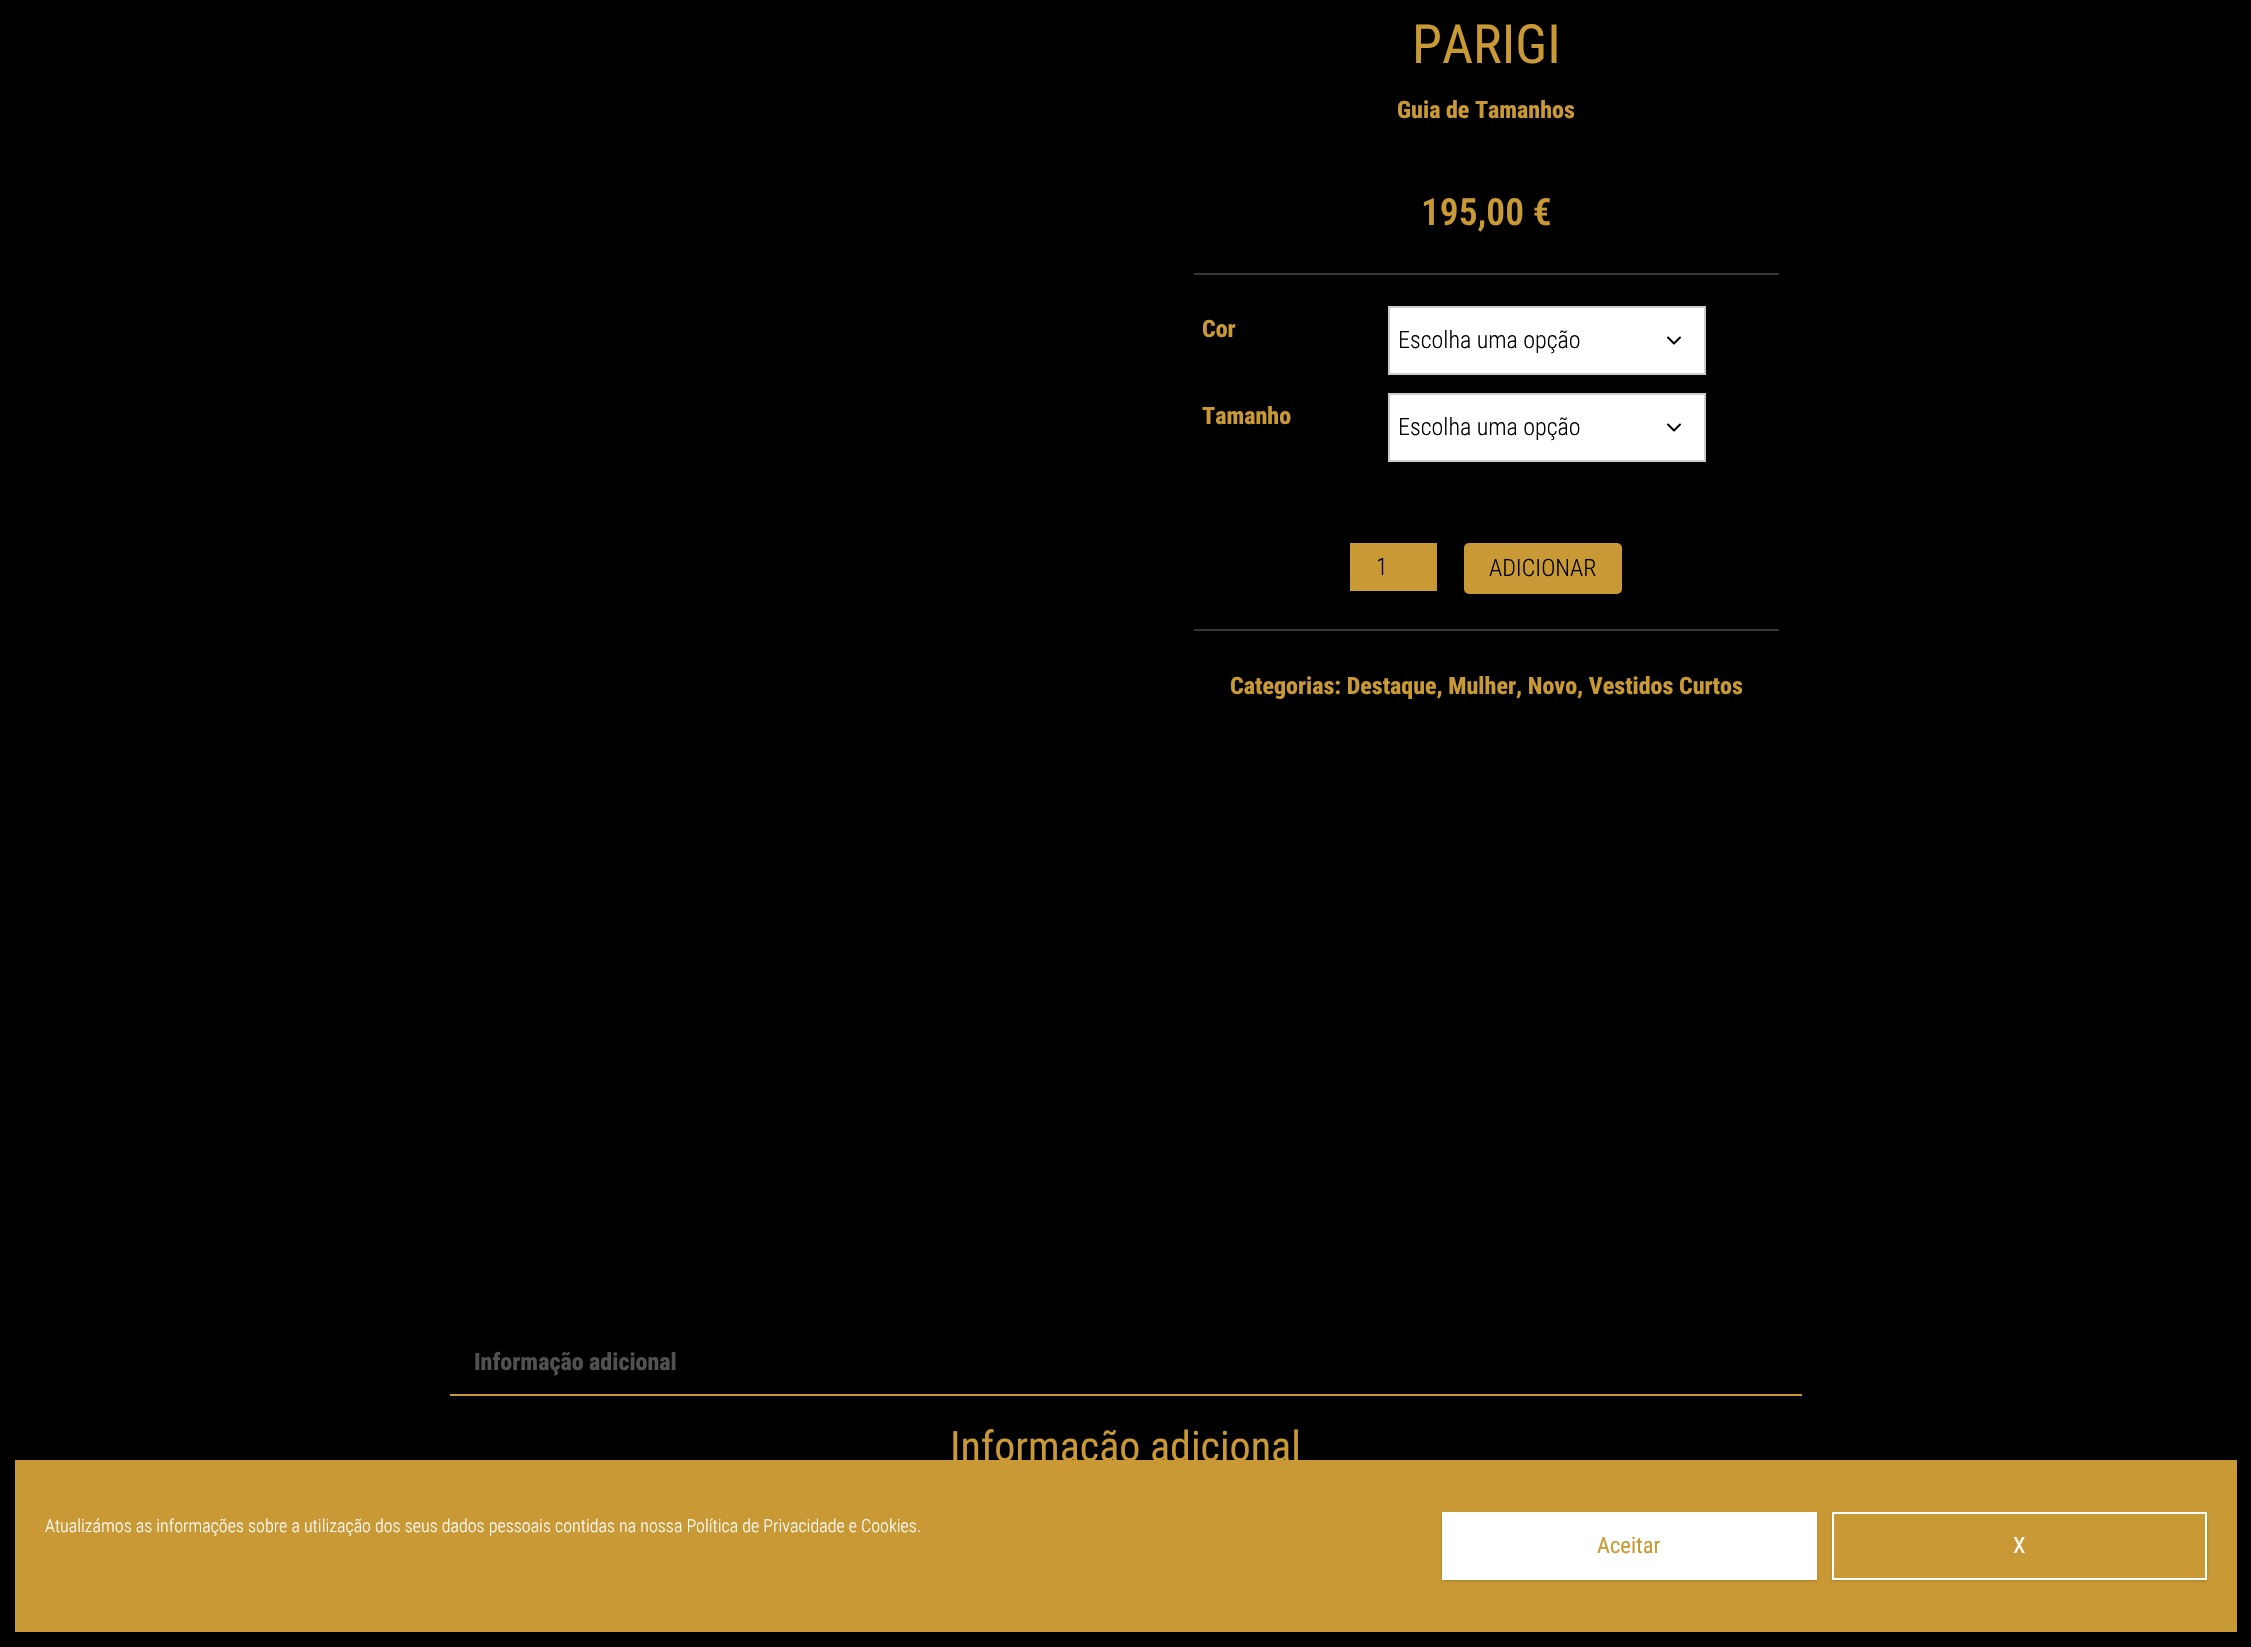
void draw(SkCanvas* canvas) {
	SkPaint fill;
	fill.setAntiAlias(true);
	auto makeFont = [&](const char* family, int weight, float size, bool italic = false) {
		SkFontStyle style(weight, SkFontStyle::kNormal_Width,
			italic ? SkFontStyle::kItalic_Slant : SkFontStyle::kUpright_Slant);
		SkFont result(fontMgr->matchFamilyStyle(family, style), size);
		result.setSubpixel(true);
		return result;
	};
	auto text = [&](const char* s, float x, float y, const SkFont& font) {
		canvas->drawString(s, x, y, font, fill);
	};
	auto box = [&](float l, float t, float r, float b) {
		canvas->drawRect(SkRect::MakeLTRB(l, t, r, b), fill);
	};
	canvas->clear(0xFF000000);
	fill.setColor(0xFF373737);
	box(1194, 273, 1779, 275);
	box(1194, 629, 1779, 631);
	fill.setColor(0xFFFFFFFF);
	box(1390, 308, 1704, 373);
	fill.setStyle(SkPaint::kStroke_Style);
	fill.setStrokeWidth(2);
	fill.setStrokeCap(SkPaint::kRound_Cap);
	fill.setStrokeJoin(SkPaint::kRound_Join);
	fill.setColor(0xFF000000);
	canvas->drawPath(SkPathBuilder().moveTo(1668, 337.5f).lineTo(1674, 343.5f).lineTo(1680, 337.5f).detach(), fill);
	fill.setStrokeCap(SkPaint::kButt_Cap);
	fill.setStrokeJoin(SkPaint::kMiter_Join);
	fill.setColor(0xFFCCCCCC);
	canvas->drawRect(SkRect::MakeLTRB(1389, 307, 1705, 374), fill);
	fill.setStyle(SkPaint::kFill_Style);
	fill.setColor(0xFFFFFFFF);
	box(1390, 395, 1704, 460);
	fill.setStyle(SkPaint::kStroke_Style);
	fill.setStrokeCap(SkPaint::kRound_Cap);
	fill.setStrokeJoin(SkPaint::kRound_Join);
	fill.setColor(0xFF000000);
	canvas->drawPath(SkPathBuilder().moveTo(1668, 424.5f).lineTo(1674, 430.5f).lineTo(1680, 424.5f).detach(), fill);
	fill.setStrokeCap(SkPaint::kButt_Cap);
	fill.setStrokeJoin(SkPaint::kMiter_Join);
	fill.setColor(0xFFCCCCCC);
	canvas->drawRect(SkRect::MakeLTRB(1389, 394, 1705, 461), fill);
	fill.setStyle(SkPaint::kFill_Style);
	fill.setColor(0xFFC99935);
	box(1350, 543, 1437, 591);
	canvas->drawRoundRect(SkRect::MakeLTRB(1465, 544, 1621, 593), 4, 4, fill);
	fill.setStyle(SkPaint::kStroke_Style);
	canvas->drawRoundRect(SkRect::MakeLTRB(1465, 544, 1621, 593), 4, 4, fill);
	fill.setStyle(SkPaint::kFill_Style);
	box(450, 1394, 1802, 1396);
	fill.setColor(0x30000000);
	fill.setMaskFilter(SkMaskFilter::MakeBlur(kNormal_SkBlurStyle, 15));
	canvas->drawRect(SkRect::MakeLTRB(15, 1475, 2237, 1647), fill);
	fill.setMaskFilter(nullptr);
	fill.setColor(0xFFC99935);
	box(15, 1460, 2237, 1632);
	fill.setColor(0x26000000);
	fill.setMaskFilter(SkMaskFilter::MakeBlur(kNormal_SkBlurStyle, 1.5f));
	canvas->drawRect(SkRect::MakeLTRB(1442, 1514, 1817, 1581), fill);
	fill.setMaskFilter(nullptr);
	fill.setColor(0xFFFFFFFF);
	box(1442, 1512, 1817, 1580);
	fill.setColor(0x26000000);
	fill.setMaskFilter(SkMaskFilter::MakeBlur(kNormal_SkBlurStyle, 1.5f));
	canvas->drawRect(SkRect::MakeLTRB(1832, 1514, 2207, 1581), fill);
	fill.setMaskFilter(nullptr);
	fill.setColor(0xFFC99935);
	canvas->drawRect(SkRect::MakeLTRB(1833, 1513, 2206, 1579), fill);
	fill.setStyle(SkPaint::kStroke_Style);
	fill.setColor(0xFFFFFFFF);
	canvas->drawRect(SkRect::MakeLTRB(1833, 1513, 2206, 1579), fill);
	auto font1 = makeFont("Roboto Condensed", 400, 54);
	fill.setStyle(SkPaint::kFill_Style);
	fill.setColor(0xFFC99935);
	text("PARIGI", 1412, 63, font1);
	auto font2 = makeFont("Roboto Condensed", 800, 24);
	text("Guia de Tamanhos", 1397, 118, font2);
	auto font3 = makeFont("Roboto Condensed", 600, 37.5f);
	text("195,00 €", 1421, 225, font3);
	text("Cor", 1202, 337, font2);
	auto font4 = makeFont("Roboto Condensed", 300, 24);
	fill.setColor(0xFF000000);
	text("Escolha uma opção", 1398, 348, font4);
	fill.setColor(0xFFC99935);
	text("Tamanho", 1202, 424, font2);
	fill.setColor(0xFF000000);
	text("Escolha uma opção", 1398, 435, font4);
	text("1", 1376, 575, font4);
	text("ADICIONAR", 1489, 576, font4);
	fill.setColor(0xFFC99935);
	text("Categorias: Destaque, Mulher, Novo, Vestidos Curtos", 1230, 694, font2);
	fill.setColor(0xFF515151);
	text("Informação adicional", 474, 1370, font2);
	auto font5 = makeFont("Roboto Condensed", 400, 42);
	fill.setColor(0xFFC99935);
	text("Informação adicional", 950, 1461, font5);
	auto font6 = makeFont("Roboto Condensed", 300, 18);
	fill.setColor(0xFFFFFFFF);
	text("Atualizámos as informações sobre a utilização dos seus dados pessoais contidas na nossa Política de Privacidade e Cookies.", 45, 1532, font6);
	auto font7 = makeFont("Roboto Condensed", 400, 22.5f);
	fill.setColor(0xFFC99935);
	text("Aceitar", 1597, 1553, font7);
	fill.setColor(0xFFFFFFFF);
	text("X", 2013, 1553, font7);
}
